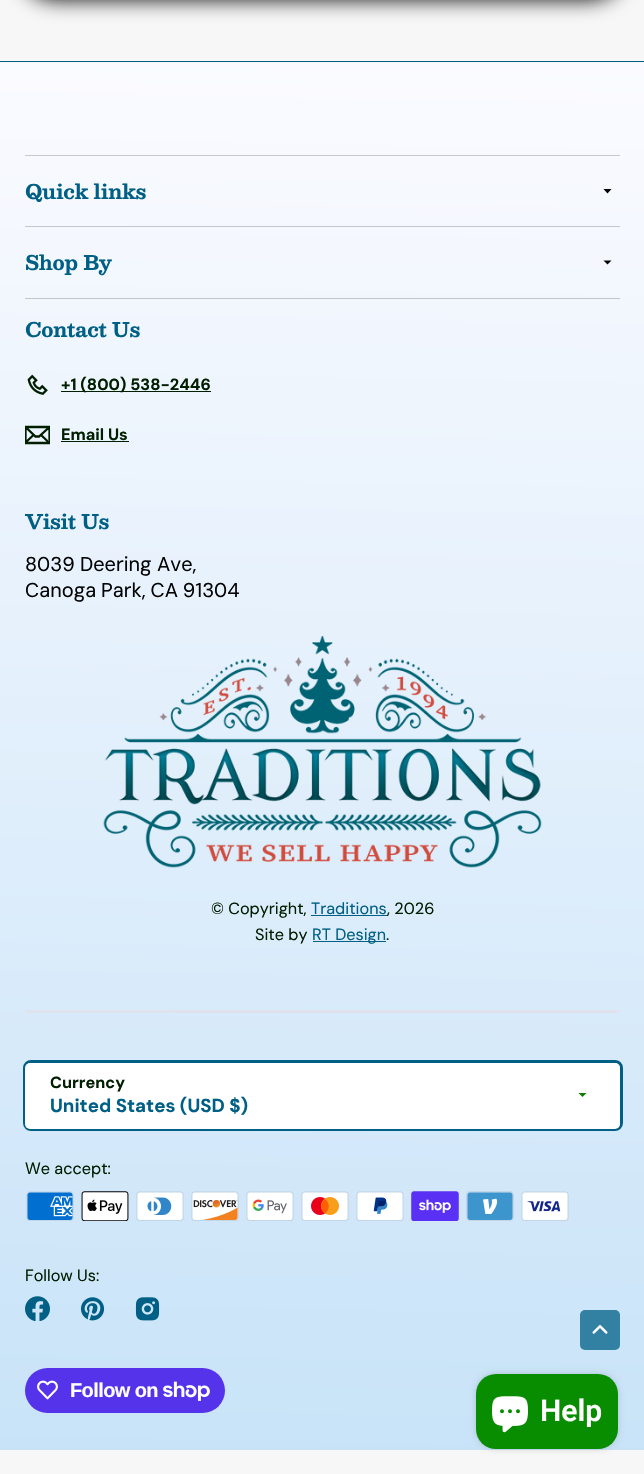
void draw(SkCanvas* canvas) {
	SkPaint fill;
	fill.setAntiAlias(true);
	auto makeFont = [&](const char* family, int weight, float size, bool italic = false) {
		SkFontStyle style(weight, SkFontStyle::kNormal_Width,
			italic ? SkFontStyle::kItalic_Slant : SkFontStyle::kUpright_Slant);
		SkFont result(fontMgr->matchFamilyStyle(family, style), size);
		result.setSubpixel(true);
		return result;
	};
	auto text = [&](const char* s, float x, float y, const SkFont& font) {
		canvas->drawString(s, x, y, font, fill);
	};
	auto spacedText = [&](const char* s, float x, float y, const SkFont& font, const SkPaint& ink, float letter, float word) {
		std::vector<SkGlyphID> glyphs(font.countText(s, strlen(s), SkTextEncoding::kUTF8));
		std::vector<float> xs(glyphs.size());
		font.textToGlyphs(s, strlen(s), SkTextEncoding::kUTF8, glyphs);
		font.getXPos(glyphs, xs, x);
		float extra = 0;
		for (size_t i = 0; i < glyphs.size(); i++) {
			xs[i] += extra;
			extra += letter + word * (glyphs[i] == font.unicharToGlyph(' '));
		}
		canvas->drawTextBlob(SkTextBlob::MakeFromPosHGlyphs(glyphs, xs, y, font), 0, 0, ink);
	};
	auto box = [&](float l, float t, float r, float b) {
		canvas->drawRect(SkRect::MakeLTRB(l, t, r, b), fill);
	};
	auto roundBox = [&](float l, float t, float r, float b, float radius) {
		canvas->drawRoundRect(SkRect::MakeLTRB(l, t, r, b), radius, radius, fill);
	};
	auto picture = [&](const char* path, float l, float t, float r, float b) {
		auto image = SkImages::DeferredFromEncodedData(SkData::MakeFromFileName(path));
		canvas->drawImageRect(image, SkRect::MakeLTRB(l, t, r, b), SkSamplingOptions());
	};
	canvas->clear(0xFFF7F7F7);
	fill.setColor(0xFF000000);
	fill.setMaskFilter(SkMaskFilter::MakeBlur(kNormal_SkBlurStyle, 10.5f));
	canvas->drawRoundRect(SkRect::MakeLTRB(20, -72, 625, -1), 40.5f, 40.5f, fill);
	fill.setMaskFilter(nullptr);
	{
		const SkColor colors[] = {0xFFC8E3F8, 0xFFFBFBFF};
		const float stops[] = {0, 1};
		const SkPoint ends[] = {{310, 1455}, {335, 57}};
		fill.setShader(SkGradientShader::MakeLinear(ends, colors, stops, 2, SkTileMode::kClamp));
		fill.setAlpha(255);
	}
	box(0, 63, 644, 1450);
	fill.setShader(nullptr);
	fill.setColor(0xFF005F85);
	box(0, 61, 644, 62);
	fill.setColor(0xFFC7C8CC);
	box(25, 155, 620, 156);
	fill.setColor(0xFFC5C7CC);
	box(25, 226, 620, 227);
	fill.setColor(0xFF040404);
	canvas->drawPath(SkPathBuilder().moveTo(607.5f, 193.5f).lineTo(603.5f, 189).lineTo(611.5f, 189).close().detach(), fill);
	fill.setColor(0xFFC2C6CC);
	box(25, 298, 620, 299);
	fill.setColor(0xFF040404);
	canvas->drawPath(SkPathBuilder().moveTo(607.5f, 264.5f).lineTo(603.5f, 260.5f).lineTo(611.5f, 260.5f).close().detach(), fill);
	picture("image0.png", 27, 374, 48, 395);
	fill.setColor(0xFF001E00);
	box(61, 391, 211, 392);
	canvas->save();
	canvas->clipRect(SkRect::MakeLTRB(25, 423, 50, 448));
	fill.setStyle(SkPaint::kStroke_Style);
	fill.setStrokeWidth(2.3f);
	canvas->drawPath(SkPathBuilder().moveTo(49.5f, 443).lineTo(25.5f, 443).lineTo(25.5f, 427).lineTo(49.5f, 427).close().moveTo(25.5f, 427).lineTo(35.5f, 436.5f).lineTo(39, 436.5f).lineTo(49.5f, 427).moveTo(33.5f, 435).lineTo(25.5f, 442.5f).moveTo(49.5f, 443).lineTo(41, 435).detach(), fill);
	canvas->restore();
	fill.setStyle(SkPaint::kFill_Style);
	box(61, 441, 129, 442);
	picture("image1.png", 103, 636, 542, 868);
	fill.setColor(0xFF005F85);
	box(311, 915, 388, 916);
	box(313, 941, 386, 942);
	fill.setColor(0xFFE0E3EE);
	box(25, 1010, 620, 1013);
	fill.setStyle(SkPaint::kStroke_Style);
	fill.setStrokeWidth(3);
	fill.setColor(0xFF005F85);
	canvas->drawRoundRect(SkRect::MakeLTRB(24.5f, 1061.5f, 621.5f, 1129.5f), 6.5f, 6.5f, fill);
	fill.setStyle(SkPaint::kFill_Style);
	fill.setColor(0xFFFFFFFF);
	roundBox(25, 1063, 620, 1129, 5);
	fill.setColor(0xFF0D7C00);
	canvas->drawPath(SkPathBuilder().moveTo(582.5f, 1097).lineTo(578.5f, 1093).lineTo(586.5f, 1093).close().detach(), fill);
	picture("image2.png", 26, 1191, 74, 1221);
	picture("image3.png", 81, 1191, 129, 1221);
	picture("image4.png", 136, 1191, 184, 1221);
	picture("image5.png", 191, 1191, 239, 1221);
	picture("image6.png", 246, 1191, 294, 1221);
	picture("image7.png", 301, 1191, 349, 1221);
	picture("image8.png", 356, 1191, 404, 1221);
	picture("image9.png", 411, 1191, 459, 1221);
	picture("image10.png", 466, 1191, 514, 1221);
	picture("image11.png", 521, 1191, 569, 1221);
	picture("image12.png", 25, 1296, 50, 1321);
	picture("image13.png", 80, 1297, 105, 1321);
	picture("image14.png", 135, 1297, 160, 1321);
	fill.setColor(0xFF5433EB);
	roundBox(25, 1368, 225, 1413, 22.5f);
	picture("image15.png", 37, 1380, 58, 1400);
	picture("image16.png", 163, 1381, 210, 1401);
	fill.setColor(0xFF3381A2);
	roundBox(580, 1310, 620, 1350, 5);
	picture("image17.png", 592, 1325, 608, 1334);
	fill.setColor(0x26000000);
	fill.setMaskFilter(SkMaskFilter::MakeBlur(kNormal_SkBlurStyle, 3));
	canvas->drawRoundRect(SkRect::MakeLTRB(476, 1374, 618, 1449), 20, 20, fill);
	fill.setMaskFilter(nullptr);
	fill.setColor(0xFF088C00);
	roundBox(476, 1374, 618, 1449, 20);
	picture("image18.png", 492, 1396, 528, 1433);
	auto font1 = makeFont("Besley", 700, 20);
	fill.setColor(0xFF005F85);
	spacedText("Quick links", 25, 199, font1, fill, -0.4f, 0);
	spacedText("Shop By", 25, 270, font1, fill, -0.4f, 0);
	spacedText("Contact Us", 25, 337, font1, fill, -0.4f, 0);
	auto font2 = makeFont("DM Sans", 700, 16.25f);
	fill.setColor(0xFF001E00);
	text("+1 (800) 538-2446", 61, 390, font2);
	text("Email Us", 61, 440, font2);
	fill.setColor(0xFF005F85);
	spacedText("Visit Us", 25, 529, font1, fill, -0.4f, 0);
	auto font3 = makeFont("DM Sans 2", 400, 20);
	fill.setColor(0xFF040404);
	text("8039 Deering Ave,", 25, 571, font3);
	spacedText("Canoga Park, CA 91304", 25, 597, font3, fill, 0, -0.5f);
	auto font4 = makeFont("DM Sans", 400, 16.25f);
	fill.setColor(0xFF001E00);
	text("© Copyright,", 211, 914, font4);
	fill.setColor(0xFF005F85);
	text("Traditions", 311, 914, font4);
	fill.setColor(0xFF001E00);
	text(", 2026", 387, 914, font4);
	text("Site by", 255, 940, font4);
	fill.setColor(0xFF005F85);
	text("RT Design", 312, 940, font4);
	fill.setColor(0xFF001E00);
	text(".", 386, 940, font4);
	text("Currency", 50, 1088, font2);
	auto font5 = makeFont("DM Sans 2", 700, 18.75f);
	fill.setColor(0xFF005F85);
	text("United States (USD $)", 50, 1112, font5);
	fill.setColor(0xFF001E00);
	text("We accept:", 25, 1174, font4);
	text("Follow Us:", 25, 1281, font4);
	auto font6 = makeFont("Liberation Sans", 700, 20);
	fill.setColor(0xFFFFFFFF);
	spacedText("Follow on", 70, 1397, font6, fill, -0.6f, 0);
	auto font7 = makeFont("Roboto", 600, 30);
	text("Help", 540, 1421, font7);
}
